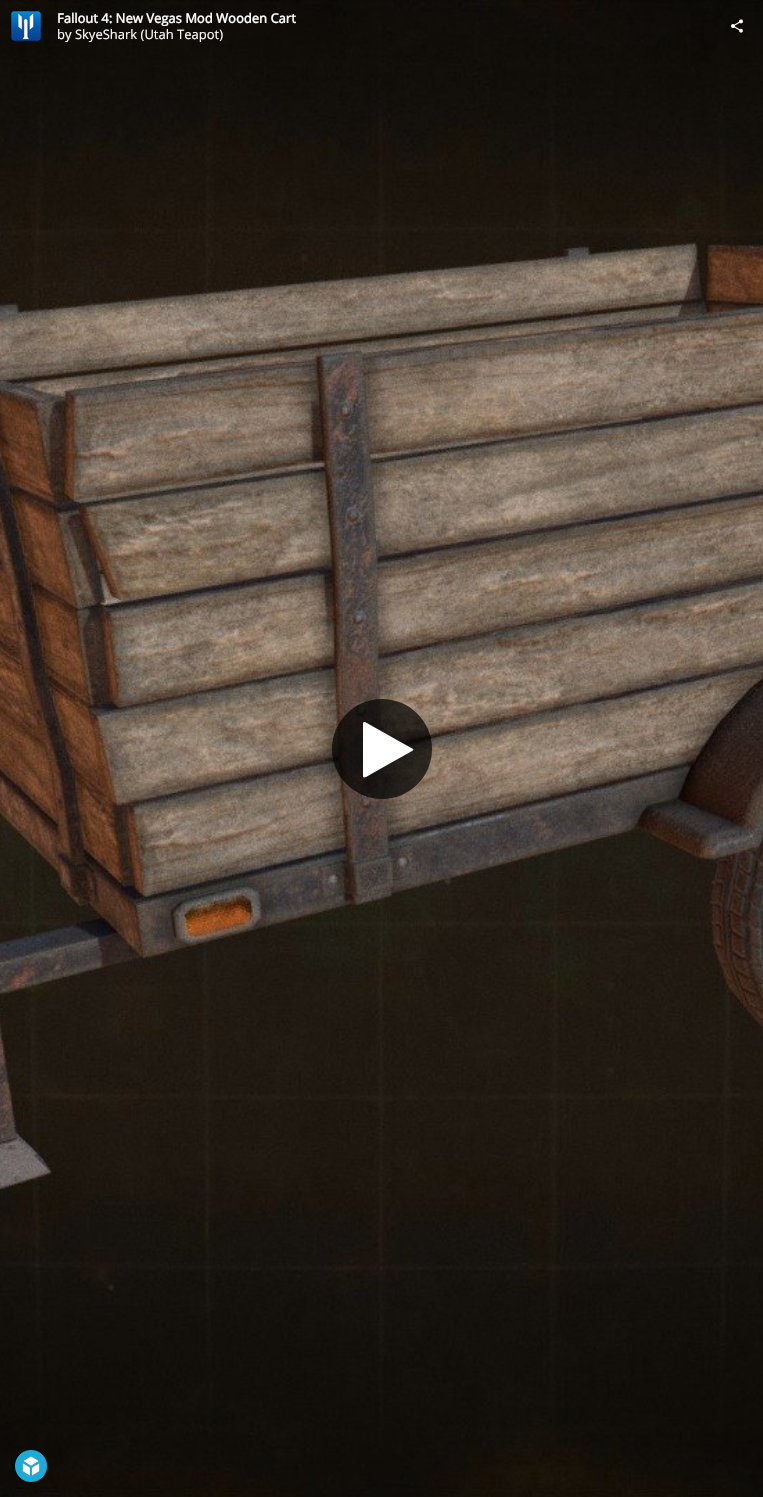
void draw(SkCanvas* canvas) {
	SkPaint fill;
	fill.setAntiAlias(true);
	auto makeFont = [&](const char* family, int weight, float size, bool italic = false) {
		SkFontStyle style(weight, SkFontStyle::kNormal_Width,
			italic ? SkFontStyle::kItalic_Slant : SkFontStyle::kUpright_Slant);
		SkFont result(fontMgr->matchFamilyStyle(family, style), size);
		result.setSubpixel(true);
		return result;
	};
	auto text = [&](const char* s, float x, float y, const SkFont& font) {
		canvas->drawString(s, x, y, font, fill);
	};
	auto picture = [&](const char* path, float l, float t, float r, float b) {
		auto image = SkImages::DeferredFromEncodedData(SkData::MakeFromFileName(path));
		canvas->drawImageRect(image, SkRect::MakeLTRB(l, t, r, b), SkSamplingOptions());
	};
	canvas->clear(0xFFFFFFFF);
	picture("image0.png", 0, 0, 763, 1497);
	fill.setColor(0xB3000000);
	canvas->drawCircle(382, 749, 50, fill);
	fill.setColor(0xFFFFFFFF);
	canvas->drawPath(SkPathBuilder().moveTo(412, 751).lineTo(373, 773).cubicTo(372, 773, 365, 779, 363, 777).lineTo(363, 723).cubicTo(363, 722, 364, 722, 365, 722).lineTo(413, 749).cubicTo(414, 750, 413, 750, 412, 751).close().detach(), fill);
	picture("image1.png", 15, 1450, 47, 1482);
	picture("image2.png", 11, 11, 41, 41);
	picture("image3.png", 731, 19, 743, 33);
	auto font1 = makeFont("Open Sans", 700, 13);
	text("Fallout 4: New Vegas Mod Wooden Cart", 57, 23, font1);
	auto font2 = makeFont("Open Sans", 400, 13);
	text("by SkyeShark (Utah Teapot)", 57, 39, font2);
}
